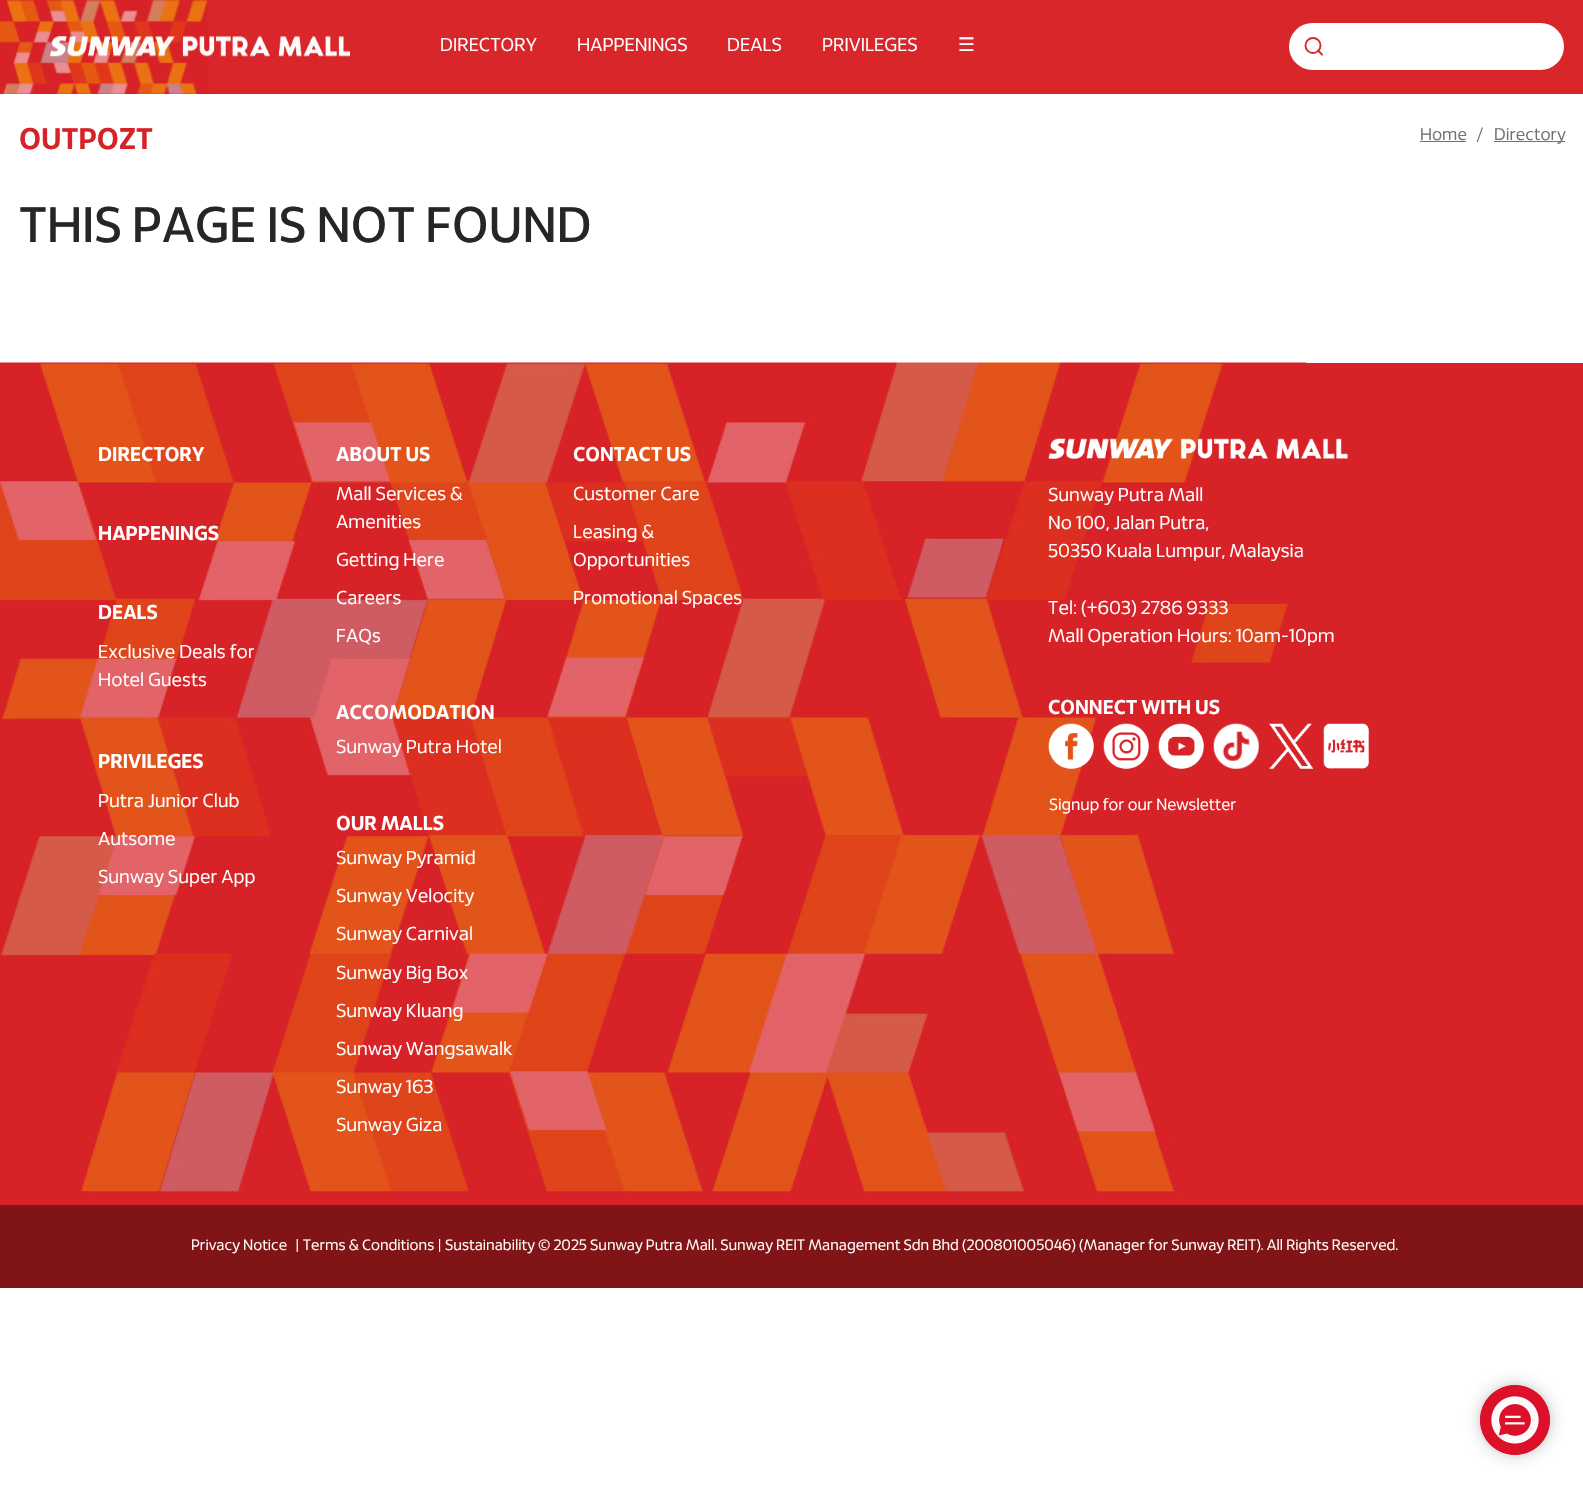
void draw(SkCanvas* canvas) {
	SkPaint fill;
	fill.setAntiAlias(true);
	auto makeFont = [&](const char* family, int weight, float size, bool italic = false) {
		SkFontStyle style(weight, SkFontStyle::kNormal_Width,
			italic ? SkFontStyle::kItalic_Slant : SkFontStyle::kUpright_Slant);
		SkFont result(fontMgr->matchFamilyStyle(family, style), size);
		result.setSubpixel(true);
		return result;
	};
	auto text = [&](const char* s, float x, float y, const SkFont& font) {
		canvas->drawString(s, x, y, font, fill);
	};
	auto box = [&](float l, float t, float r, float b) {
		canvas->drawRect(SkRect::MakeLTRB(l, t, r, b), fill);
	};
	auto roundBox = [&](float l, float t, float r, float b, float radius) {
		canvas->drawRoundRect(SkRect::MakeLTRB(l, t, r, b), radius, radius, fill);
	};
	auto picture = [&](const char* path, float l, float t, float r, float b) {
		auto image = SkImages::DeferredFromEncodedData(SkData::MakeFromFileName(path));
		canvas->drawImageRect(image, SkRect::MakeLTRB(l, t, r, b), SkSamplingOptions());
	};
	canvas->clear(0xFFFFFFFF);
	fill.setColor(0xFFD8262B);
	box(0, 0, 1583, 94);
	picture("image0.png", 0, 0, 209, 94);
	picture("image1.png", 50, 36, 350, 57);
	fill.setColor(0xFFFFFFFF);
	roundBox(1289, 23, 1564, 70, 23.5f);
	fill.setStyle(SkPaint::kStroke_Style);
	fill.setStrokeWidth(1.9f);
	fill.setColor(0xFFD8262B);
	canvas->drawCircle(1313, 45.5f, 7.5f, fill);
	fill.setStrokeCap(SkPaint::kRound_Cap);
	fill.setStrokeJoin(SkPaint::kRound_Join);
	canvas->drawPath(SkPathBuilder().moveTo(1322, 54.5f).lineTo(1318, 50.5f).detach(), fill);
	fill.setStyle(SkPaint::kFill_Style);
	fill.setColor(0xFF6D7278);
	box(1420, 141, 1466, 142);
	box(1494, 141, 1565, 142);
	fill.setColor(0xFFD72227);
	box(0, 363, 1583, 1205);
	picture("image2.png", 0, 362, 1307, 1193);
	picture("image3.png", 1048, 438, 1348, 459);
	picture("image4.png", 1048, 723, 1094, 769);
	picture("image5.png", 1103, 723, 1149, 769);
	picture("image6.png", 1158, 723, 1204, 769);
	picture("image7.png", 1213, 723, 1259, 769);
	picture("image8.png", 1269, 723, 1313, 769);
	picture("image9.png", 1323, 723, 1369, 769);
	fill.setColor(0xFF811417);
	box(0, 1205, 1583, 1288);
	fill.setColor(0x33050505);
	fill.setMaskFilter(SkMaskFilter::MakeBlur(kNormal_SkBlurStyle, 9.5f));
	canvas->drawRoundRect(SkRect::MakeLTRB(1480, 1385, 1550, 1455), 35, 35, fill);
	fill.setMaskFilter(nullptr);
	fill.setColor(0x1A050505);
	fill.setMaskFilter(SkMaskFilter::MakeBlur(kNormal_SkBlurStyle, 3));
	canvas->drawRoundRect(SkRect::MakeLTRB(1480, 1385, 1550, 1455), 35, 35, fill);
	fill.setMaskFilter(nullptr);
	fill.setColor(0xFFDC142D);
	canvas->drawCircle(1515, 1420, 35, fill);
	picture("image10.png", 1480, 1385, 1550, 1455);
	auto font1 = makeFont("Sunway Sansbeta", 400, 18.75f);
	fill.setColor(0xFFFFFFFF);
	text("DIRECTORY", 440, 51, font1);
	text("HAPPENINGS", 577, 51, font1);
	text("DEALS", 727, 51, font1);
	text("PRIVILEGES", 822, 51, font1);
	auto font2 = makeFont("DejaVu Sans", 400, 18.75f);
	text("☰", 958, 51, font2);
	auto font3 = makeFont("Sunway Sansbeta", 700, 30);
	fill.setColor(0xFFD72227);
	text("OUTPOZT", 19, 149, font3);
	auto font4 = makeFont("Sunway Sansbeta", 400, 17);
	fill.setColor(0xFF6D7278);
	text("Home", 1420, 140, font4);
	text("/", 1476, 140, font4);
	text("Directory", 1494, 140, font4);
	auto font5 = makeFont("Sunway Sansbeta", 500, 50);
	fill.setColor(0xFF262626);
	text("THIS PAGE IS NOT FOUND", 19, 242, font5);
	auto font6 = makeFont("Sunway Sansbeta", 700, 20);
	fill.setColor(0xFFFFFFFF);
	text("DIRECTORY", 98, 461, font6);
	text("HAPPENINGS", 98, 540, font6);
	text("DEALS", 98, 619, font6);
	text("Exclusive Deals for", 98, 658, font1);
	text("Hotel Guests", 98, 686, font1);
	text("PRIVILEGES", 98, 768, font6);
	text("Putra Junior Club", 98, 807, font1);
	text("Autsome", 98, 845, font1);
	text("Sunway Super App", 98, 883, font1);
	text("ABOUT US", 336, 461, font6);
	text("Mall Services &", 336, 500, font1);
	text("Amenities", 336, 528, font1);
	text("Getting Here", 336, 566, font1);
	text("Careers", 336, 604, font1);
	text("FAQs", 336, 642, font1);
	text("ACCOMODATION", 336, 719, font6);
	text("Sunway Putra Hotel", 336, 753, font1);
	text("OUR MALLS", 336, 830, font6);
	text("Sunway Pyramid", 336, 864, font1);
	text("Sunway Velocity", 336, 902, font1);
	text("Sunway Carnival", 336, 940, font1);
	text("Sunway Big Box", 336, 979, font1);
	text("Sunway Kluang", 336, 1017, font1);
	text("Sunway Wangsawalk", 336, 1055, font1);
	text("Sunway 163", 336, 1093, font1);
	text("Sunway Giza", 336, 1131, font1);
	text("CONTACT US", 573, 461, font6);
	text("Customer Care", 573, 500, font1);
	text("Leasing &", 573, 538, font1);
	text("Opportunities", 573, 566, font1);
	text("Promotional Spaces", 573, 604, font1);
	text("Sunway Putra Mall", 1048, 501, font1);
	text("No 100, Jalan Putra,", 1048, 529, font1);
	text("50350 Kuala Lumpur, Malaysia", 1048, 557, font1);
	text("Tel: (+603) 2786 9333", 1048, 614, font1);
	text("Mall Operation Hours: 10am-10pm", 1048, 642, font1);
	text("CONNECT WITH US", 1048, 714, font6);
	auto font7 = makeFont("Sunway Sansbeta", 400, 16.25f);
	text("Signup for our Newsletter", 1049, 810, font7);
	auto font8 = makeFont("Sunway Sansbeta", 400, 15);
	text("Privacy Notice", 191, 1250, font8);
	text("| Terms & Conditions | Sustainability © 2025 Sunway Putra Mall. Sunway REIT Management Sdn Bhd (200801005046) (Manager for Sunway REIT). All Rights Reserved.", 295, 1250, font8);
}
